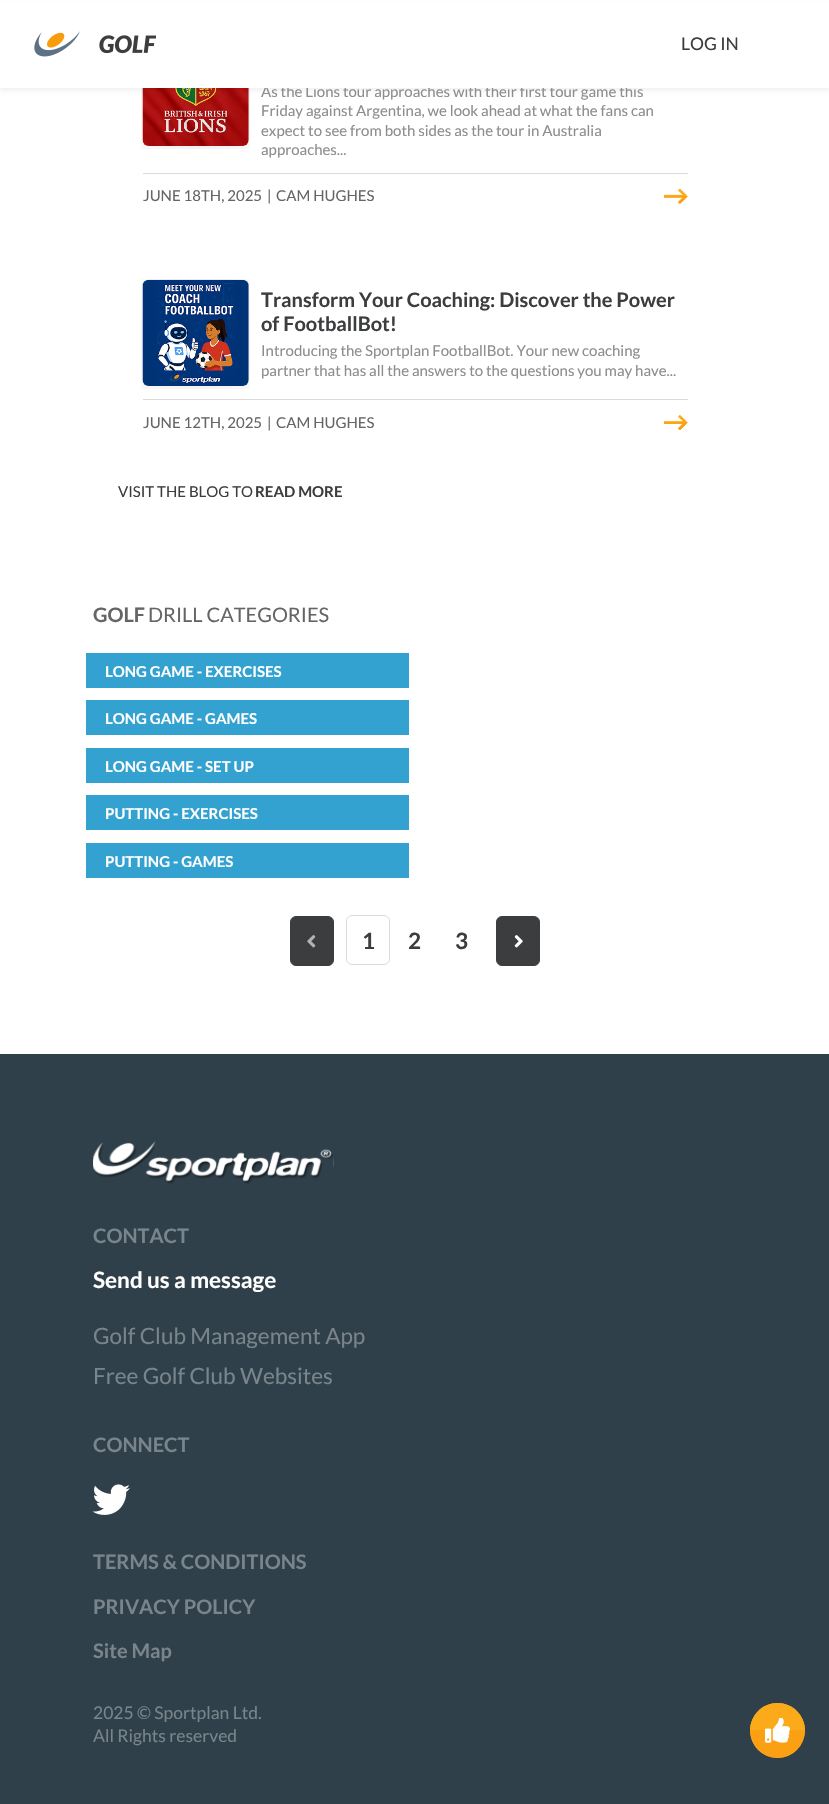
void draw(SkCanvas* canvas) {
	SkPaint fill;
	fill.setAntiAlias(true);
	auto makeFont = [&](const char* family, int weight, float size, bool italic = false) {
		SkFontStyle style(weight, SkFontStyle::kNormal_Width,
			italic ? SkFontStyle::kItalic_Slant : SkFontStyle::kUpright_Slant);
		SkFont result(fontMgr->matchFamilyStyle(family, style), size);
		result.setSubpixel(true);
		return result;
	};
	auto text = [&](const char* s, float x, float y, const SkFont& font) {
		canvas->drawString(s, x, y, font, fill);
	};
	auto box = [&](float l, float t, float r, float b) {
		canvas->drawRect(SkRect::MakeLTRB(l, t, r, b), fill);
	};
	auto picture = [&](const char* path, float l, float t, float r, float b) {
		auto image = SkImages::DeferredFromEncodedData(SkData::MakeFromFileName(path));
		canvas->drawImageRect(image, SkRect::MakeLTRB(l, t, r, b), SkSamplingOptions());
	};
	canvas->clear(0xFFFFFFFF);
	picture("image2.png", 141, 88, 250, 149);
	fill.setColor(0x0D000000);
	fill.setMaskFilter(SkMaskFilter::MakeBlur(kNormal_SkBlurStyle, 2));
	canvas->drawRect(SkRect::MakeLTRB(0, 4, 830, 91), fill);
	fill.setMaskFilter(nullptr);
	fill.setColor(0xFFDBDBDB);
	box(143, 173, 688, 174);
	picture("image3.png", 664, 189, 688, 204);
	picture("image4.png", 141, 279, 250, 389);
	box(143, 399, 688, 400);
	picture("image5.png", 664, 415, 688, 430);
	fill.setColor(0xFF2F404A);
	box(0, 1054, 829, 1804);
	fill.setColor(0xFFFBAB1A);
	canvas->drawCircle(777.5f, 1730.5f, 27.5f, fill);
	canvas->save();
	canvas->clipPath(SkPathBuilder().moveTo(777.5f, 1703).cubicTo(792.5f, 1703, 805, 1715.5f, 805, 1730.5f).cubicTo(805, 1745.5f, 792.5f, 1758, 777.5f, 1758).cubicTo(762.5f, 1758, 750, 1745.5f, 750, 1730.5f).cubicTo(750, 1715.5f, 762.5f, 1703, 777.5f, 1703).close().detach(), true);
	fill.setColor(0xFFFCA013);
	canvas->drawPath(SkPathBuilder().moveTo(750, 1730).lineTo(805, 1730).lineTo(805, 1730.5f).cubicTo(805, 1745.5f, 792.5f, 1758, 777.5f, 1758).cubicTo(762.5f, 1758, 750, 1745.5f, 750, 1730.5f).close().detach(), fill);
	fill.setColor(0xFFFBAB1A);
	box(750, 1703, 805, 1730);
	canvas->restore();
	picture("image6.png", 765, 1718, 790, 1743);
	fill.setColor(0xFF34A2D1);
	box(86, 653, 409, 688);
	box(86, 700, 409, 735);
	box(86, 748, 409, 783);
	box(86, 795, 409, 830);
	box(86, 843, 409, 878);
	fill.setColor(0xFF3C3D3F);
	canvas->drawRoundRect(SkRect::MakeLTRB(290.5f, 916.5f, 333.5f, 965.5f), 5.5f, 5.5f, fill);
	fill.setStyle(SkPaint::kStroke_Style);
	fill.setStrokeWidth(1);
	canvas->drawRoundRect(SkRect::MakeLTRB(290.5f, 916.5f, 333.5f, 965.5f), 5.5f, 5.5f, fill);
	picture("image7.png", 307, 935, 316, 948);
	fill.setColor(0xFFDBDBDB);
	canvas->drawRoundRect(SkRect::MakeLTRB(346.5f, 915.5f, 389.5f, 964.5f), 5.5f, 5.5f, fill);
	fill.setStyle(SkPaint::kFill_Style);
	fill.setColor(0xFF3C3D3F);
	canvas->drawRoundRect(SkRect::MakeLTRB(496.5f, 916.5f, 539.5f, 965.5f), 5.5f, 5.5f, fill);
	fill.setStyle(SkPaint::kStroke_Style);
	canvas->drawRoundRect(SkRect::MakeLTRB(496.5f, 916.5f, 539.5f, 965.5f), 5.5f, 5.5f, fill);
	picture("image8.png", 514, 935, 523, 948);
	picture("image9.png", 93, 1141, 334, 1184);
	picture("image10.png", 92, 1484, 130, 1515);
	auto font1 = makeFont("Lato", 400, 15);
	fill.setStyle(SkPaint::kFill_Style);
	fill.setColor(0xFF8D8D8D);
	text("As the Lions tour approaches with their first tour game this", 261, 97, font1);
	fill.setColor(0xFFFFFFFF);
	box(0, 2, 829, 88);
	auto font2 = makeFont("Lato", 400, 17.5f);
	fill.setColor(0xFF3C3D3F);
	text("LOG IN", 681, 50, font2);
	picture("image1.png", 99, 35, 156, 54);
	picture("image0.png", 34, 31, 80, 57);
	fill.setColor(0xFF8D8D8D);
	text("Friday against Argentina, we look ahead at what the fans can", 261, 116, font1);
	text("expect to see from both sides as the tour in Australia", 261, 136, font1);
	text("approaches...", 261, 155, font1);
	fill.setColor(0xFF656565);
	text("JUNE 18TH, 2025", 143, 201, font1);
	text("|", 267, 201, font1);
	text("CAM HUGHES", 276, 201, font1);
	auto font3 = makeFont("Lato", 700, 20);
	fill.setColor(0xFF3C3D3F);
	text("Transform Your Coaching: Discover the Power", 261, 307, font3);
	text("of FootballBot!", 261, 331, font3);
	fill.setColor(0xFF8D8D8D);
	text("Introducing the Sportplan FootballBot. Your new coaching", 261, 356, font1);
	text("partner that has all the answers to the questions you may have...", 261, 376, font1);
	fill.setColor(0xFF656565);
	text("JUNE 12TH, 2025", 143, 428, font1);
	text("|", 267, 428, font1);
	text("CAM HUGHES", 276, 428, font1);
	fill.setColor(0xFF3C3D3F);
	text("VISIT THE BLOG TO", 118, 497, font1);
	auto font4 = makeFont("Lato", 700, 15);
	text("READ MORE", 255, 497, font4);
	fill.setColor(0xFF656565);
	text("GOLF", 93, 622, font3);
	auto font5 = makeFont("Lato", 400, 20);
	text("DRILL CATEGORIES", 148, 622, font5);
	fill.setColor(0xFFFFFFFF);
	text("LONG GAME - EXERCISES", 105, 677, font4);
	text("LONG GAME - GAMES", 105, 724, font4);
	text("LONG GAME - SET UP", 105, 772, font4);
	text("PUTTING - EXERCISES", 105, 819, font4);
	text("PUTTING - GAMES", 105, 867, font4);
	auto font6 = makeFont("Lato", 700, 22.5f);
	fill.setColor(0xFF3C3D3F);
	text("1", 362, 949, font6);
	text("2", 408, 949, font6);
	text("3", 455, 949, font6);
	fill.setColor(0xFF79848B);
	text("CONTACT", 93, 1243, font3);
	fill.setColor(0xFFFFFFFF);
	text("Send us a message", 93, 1288, font6);
	auto font7 = makeFont("Lato", 400, 22.5f);
	fill.setColor(0xFF79848B);
	text("Golf Club Management App", 93, 1344, font7);
	text("Free Golf Club Websites", 93, 1384, font7);
	text("CONNECT", 93, 1452, font3);
	text("TERMS & CONDITIONS", 93, 1569, font3);
	text("PRIVACY POLICY", 93, 1614, font3);
	text("Site Map", 93, 1658, font3);
	text("2025 © Sportplan Ltd.", 93, 1719, font2);
	text("All Rights reserved", 93, 1742, font2);
}
